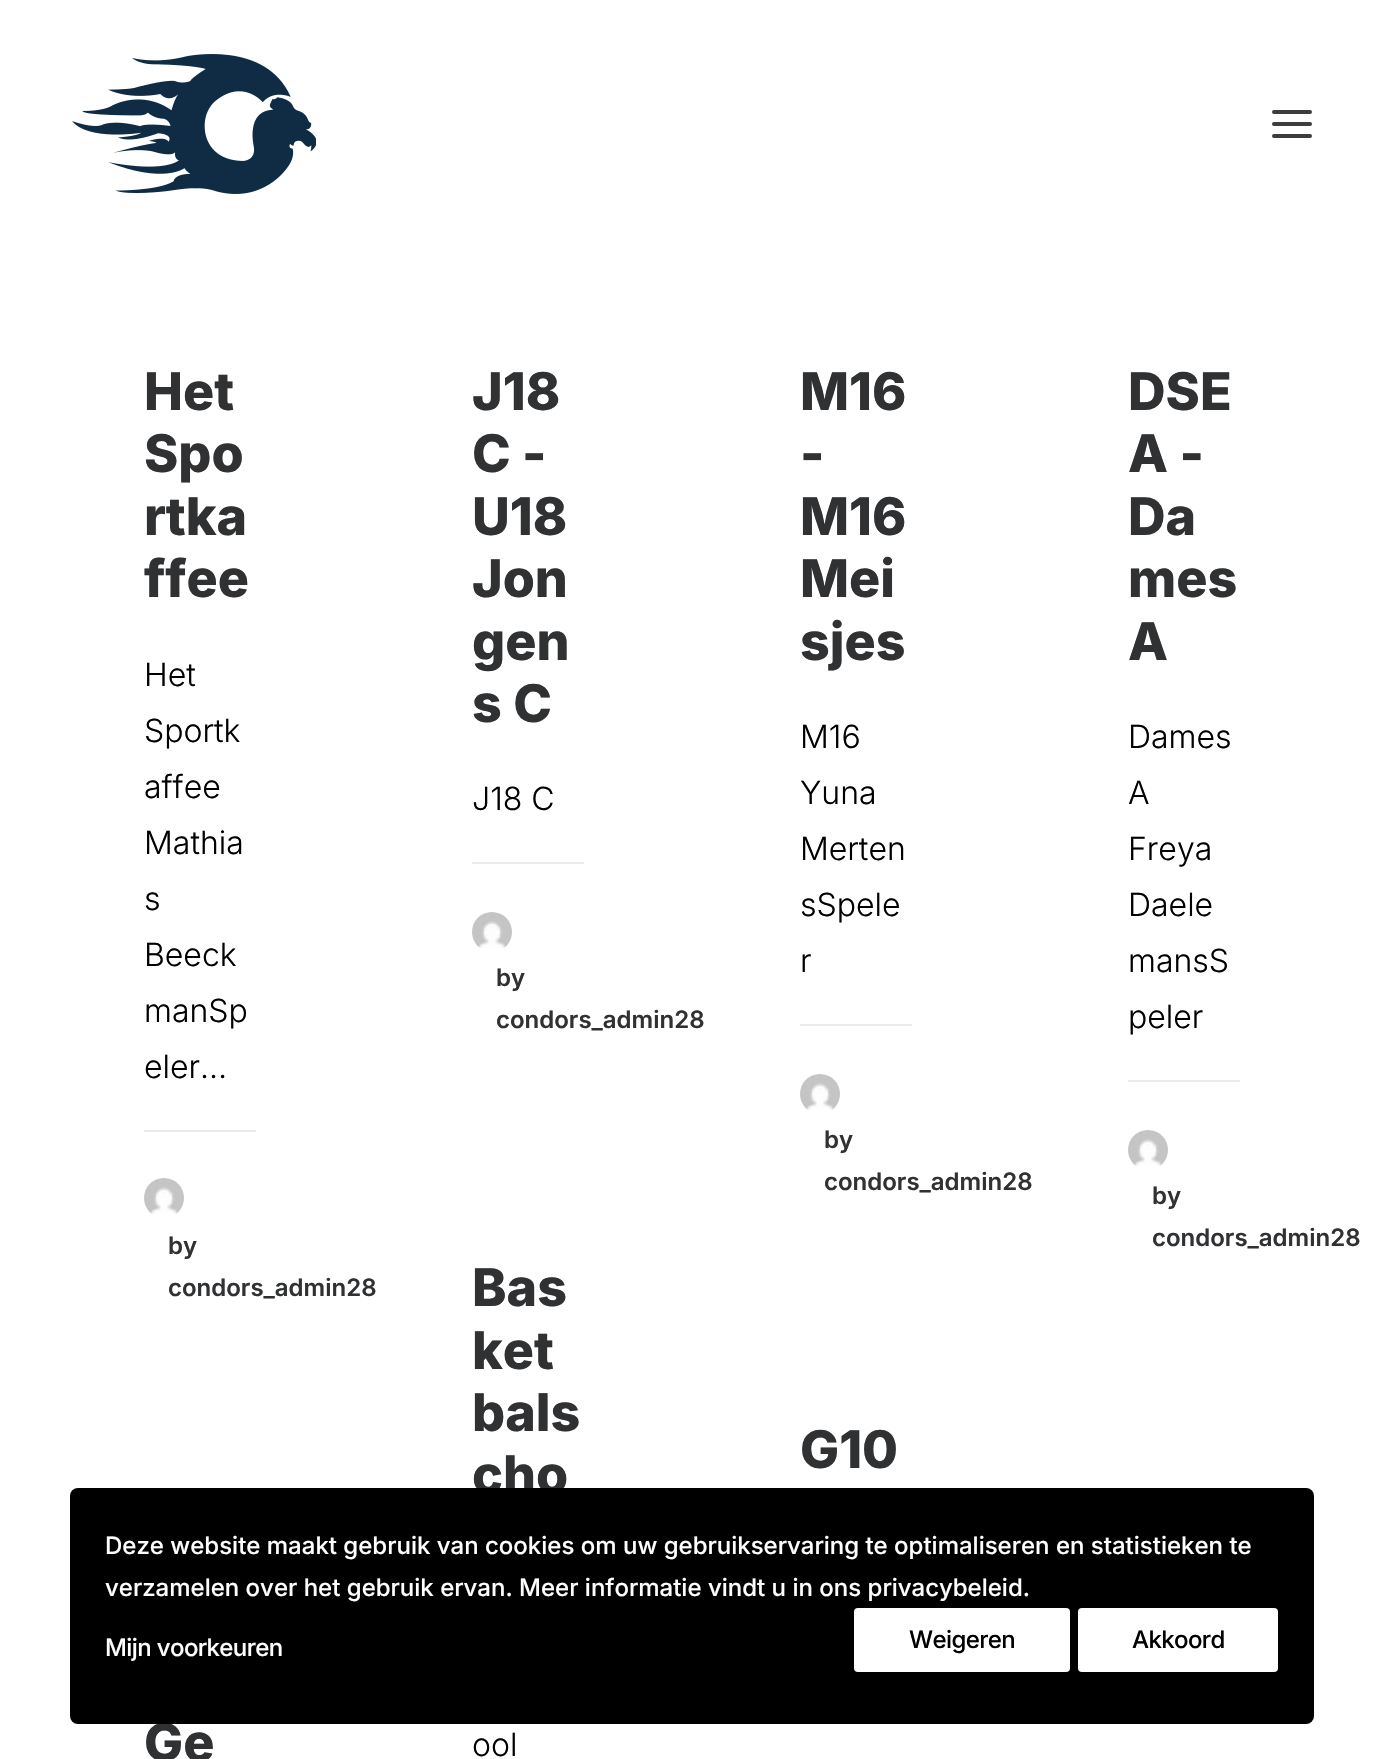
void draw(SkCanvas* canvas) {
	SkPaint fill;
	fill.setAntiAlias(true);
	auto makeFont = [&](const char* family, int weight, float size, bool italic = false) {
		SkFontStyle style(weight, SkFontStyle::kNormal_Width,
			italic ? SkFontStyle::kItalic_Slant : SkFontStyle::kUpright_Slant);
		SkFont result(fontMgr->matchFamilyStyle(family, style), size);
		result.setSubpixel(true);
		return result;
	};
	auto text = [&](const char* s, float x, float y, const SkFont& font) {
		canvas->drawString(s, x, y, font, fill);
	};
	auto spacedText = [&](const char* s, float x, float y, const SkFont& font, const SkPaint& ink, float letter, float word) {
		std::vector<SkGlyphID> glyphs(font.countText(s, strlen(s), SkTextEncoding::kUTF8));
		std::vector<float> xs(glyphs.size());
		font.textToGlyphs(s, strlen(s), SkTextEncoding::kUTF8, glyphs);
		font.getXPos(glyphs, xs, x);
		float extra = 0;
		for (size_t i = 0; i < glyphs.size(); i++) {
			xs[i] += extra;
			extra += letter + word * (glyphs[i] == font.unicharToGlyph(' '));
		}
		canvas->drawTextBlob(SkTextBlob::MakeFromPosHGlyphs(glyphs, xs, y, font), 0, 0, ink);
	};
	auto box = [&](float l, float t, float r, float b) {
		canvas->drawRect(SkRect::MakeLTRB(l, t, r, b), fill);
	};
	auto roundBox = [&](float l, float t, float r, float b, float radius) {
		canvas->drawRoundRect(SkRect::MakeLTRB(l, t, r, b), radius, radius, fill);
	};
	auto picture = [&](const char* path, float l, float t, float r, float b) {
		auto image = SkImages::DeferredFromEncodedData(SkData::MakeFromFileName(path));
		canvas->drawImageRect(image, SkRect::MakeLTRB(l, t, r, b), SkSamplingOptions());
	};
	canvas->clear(0xFFFFFFFF);
	picture("image0.png", 72, 54, 316, 194);
	fill.setColor(0xFF3D3D3D);
	roundBox(1272, 122, 1312, 126, 2);
	roundBox(1272, 110, 1312, 114, 2);
	roundBox(1272, 134, 1312, 138, 2);
	fill.setColor(0xFFEAEAEA);
	box(144, 1130, 256, 1132);
	picture("image1.png", 144, 1178, 184, 1214);
	box(472, 862, 584, 864);
	picture("image1.png", 472, 912, 512, 948);
	box(800, 1024, 912, 1026);
	picture("image1.png", 800, 1074, 840, 1110);
	box(1128, 1080, 1240, 1082);
	picture("image2.png", 1128, 1130, 1168, 1166);
	auto font1 = makeFont("Inter", 800, 52);
	fill.setColor(0xFF303133);
	text("Het", 144, 410, font1);
	text("Spo", 144, 472, font1);
	text("rtka", 144, 535, font1);
	text("ffee", 144, 597, font1);
	auto font2 = makeFont("Inter", 300, 32);
	fill.setColor(0xFF000000);
	text("Het", 144, 686, font2);
	text("Sportk", 144, 742, font2);
	text("affee", 144, 798, font2);
	text("Mathia", 144, 854, font2);
	text("s", 144, 910, font2);
	text("Beeck", 144, 966, font2);
	text("manSp", 144, 1022, font2);
	text("eler…", 144, 1078, font2);
	auto font3 = makeFont("Inter", 600, 24);
	fill.setColor(0xFF303133);
	text("by", 168, 1254, font3);
	text("condors_admin28", 168, 1296, font3);
	text("J18", 472, 410, font1);
	text("C -", 472, 472, font1);
	text("U18", 472, 535, font1);
	text("Jon", 472, 597, font1);
	text("gen", 472, 660, font1);
	text("s C", 472, 722, font1);
	fill.setColor(0xFF000000);
	text("J18 C", 472, 810, font2);
	fill.setColor(0xFF303133);
	text("by", 496, 986, font3);
	text("condors_admin28", 496, 1028, font3);
	text("M16", 800, 410, font1);
	text("-", 800, 472, font1);
	text("M16", 800, 535, font1);
	text("Mei", 800, 597, font1);
	text("sjes", 800, 660, font1);
	fill.setColor(0xFF000000);
	text("M16", 800, 748, font2);
	text("Yuna", 800, 804, font2);
	text("Merten", 800, 860, font2);
	text("sSpele", 800, 916, font2);
	text("r", 800, 972, font2);
	fill.setColor(0xFF303133);
	text("by", 824, 1148, font3);
	text("condors_admin28", 824, 1190, font3);
	text("DSE", 1128, 410, font1);
	text("A -", 1128, 472, font1);
	text("Da", 1128, 535, font1);
	text("mes", 1128, 597, font1);
	text("A", 1128, 660, font1);
	fill.setColor(0xFF000000);
	text("Dames", 1128, 748, font2);
	text("A", 1128, 804, font2);
	text("Freya", 1128, 860, font2);
	text("Daele", 1128, 916, font2);
	text("mansS", 1128, 972, font2);
	text("peler", 1128, 1028, font2);
	fill.setColor(0xFF303133);
	text("by", 1152, 1204, font3);
	text("condors_admin28", 1152, 1246, font3);
	text("Bas", 472, 1306, font1);
	text("ket", 472, 1369, font1);
	text("bals", 472, 1431, font1);
	text("cho", 472, 1493, font1);
	fill.setColor(0xFF000000);
	text("ool", 472, 1756, font2);
	fill.setColor(0xFF303133);
	text("G10", 800, 1468, font1);
	text("Ge", 144, 1761, font1);
	fill.setColor(0xFF000000);
	roundBox(70, 1488, 1314, 1724, 8);
	auto font4 = makeFont("Inter", 500, 24);
	fill.setColor(0xFFFFFFFF);
	text("Deze website maakt gebruik van cookies om uw gebruikservaring te optimaliseren en statistieken te", 105, 1554, font4);
	text("verzamelen over het gebruik ervan. Meer informatie vindt u in ons privacybeleid.", 105, 1596, font4);
	spacedText("Mijn voorkeuren", 105, 1656, font4, fill, -0.6f, 0);
	roundBox(854, 1608, 1070, 1672, 4);
	fill.setColor(0xFF000000);
	spacedText("Weigeren", 909, 1648, font4, fill, -0.6f, 0);
	fill.setColor(0xFFFFFFFF);
	roundBox(1078, 1608, 1278, 1672, 4);
	fill.setColor(0xFF000000);
	spacedText("Akkoord", 1132, 1648, font4, fill, -0.6f, 0);
}
